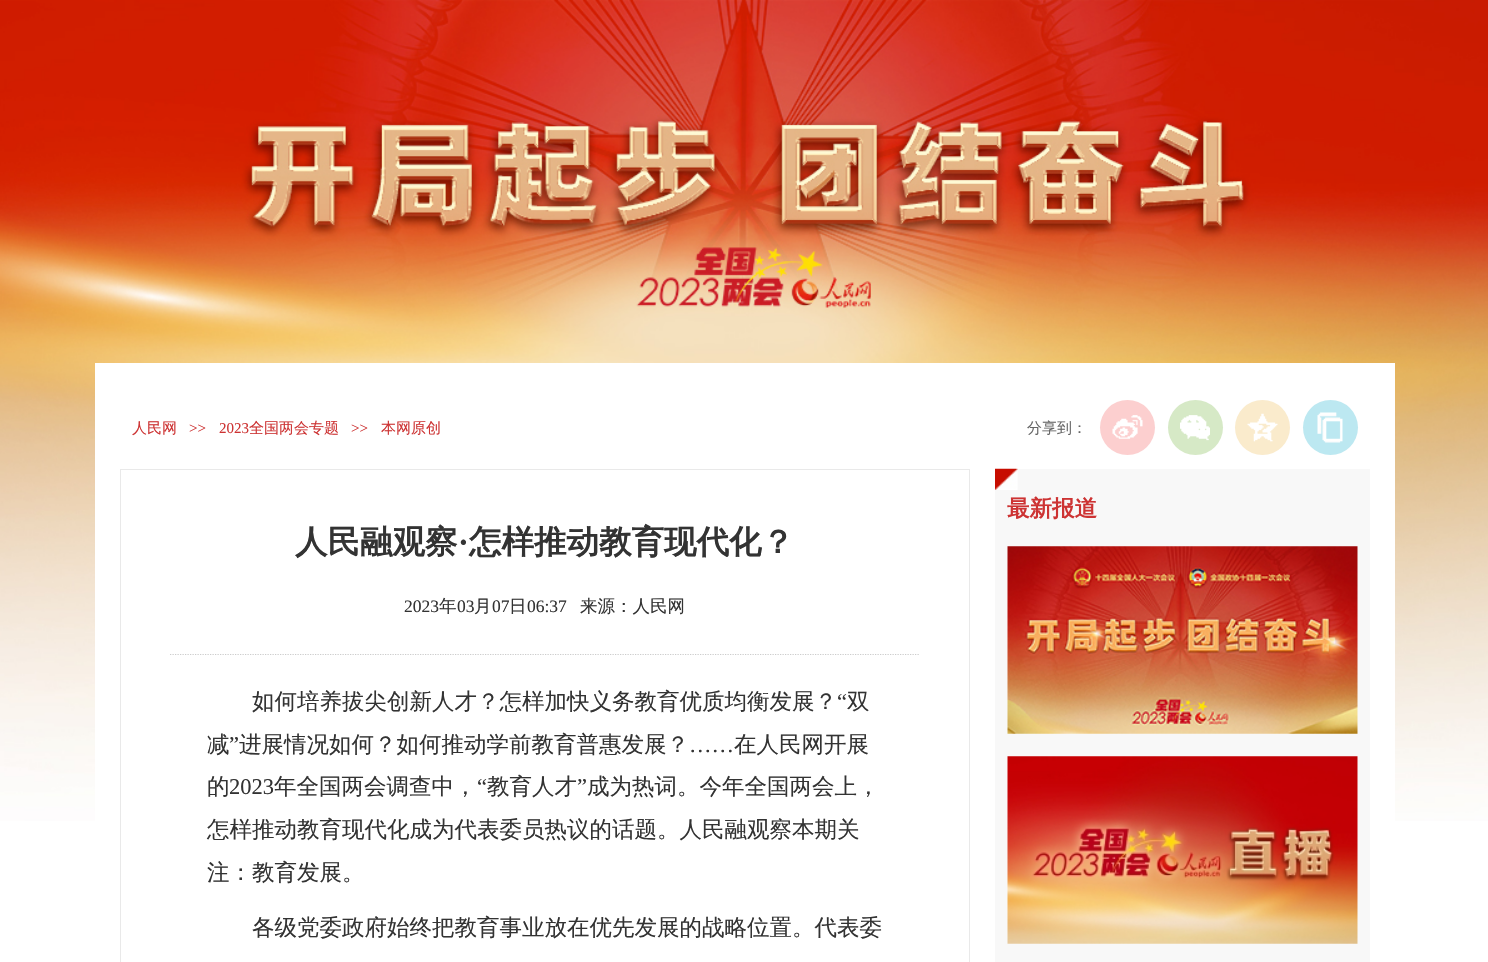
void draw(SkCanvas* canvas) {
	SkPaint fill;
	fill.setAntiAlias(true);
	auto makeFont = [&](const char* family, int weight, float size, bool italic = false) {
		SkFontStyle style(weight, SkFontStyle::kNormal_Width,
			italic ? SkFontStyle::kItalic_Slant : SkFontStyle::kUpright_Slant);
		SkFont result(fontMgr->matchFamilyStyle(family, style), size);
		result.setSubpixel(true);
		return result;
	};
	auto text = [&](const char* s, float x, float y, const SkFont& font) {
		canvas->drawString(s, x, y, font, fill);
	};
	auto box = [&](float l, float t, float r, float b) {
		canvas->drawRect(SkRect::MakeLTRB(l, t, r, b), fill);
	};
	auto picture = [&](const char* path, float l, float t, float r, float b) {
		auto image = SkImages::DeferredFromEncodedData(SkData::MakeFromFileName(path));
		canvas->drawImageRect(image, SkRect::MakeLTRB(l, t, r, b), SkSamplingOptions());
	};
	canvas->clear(0xFFFFFFFF);
	picture("image0.png", 0, 0, 1488, 821);
	fill.setColor(0xFFFFFFFF);
	box(95, 363, 1395, 821);
	fill.setColor(0xFFFCCFCF);
	canvas->drawCircle(1127.5f, 427.5f, 27.5f, fill);
	picture("image1.png", 1112, 415, 1143, 439);
	fill.setColor(0xFFD6E9C6);
	canvas->drawCircle(1195.5f, 427.5f, 27.5f, fill);
	picture("image2.png", 1180, 415, 1210, 441);
	fill.setColor(0xFFFAEBCC);
	canvas->drawCircle(1262.5f, 427.5f, 27.5f, fill);
	picture("image3.png", 1247, 413, 1278, 442);
	fill.setColor(0xFFBCE8F1);
	canvas->drawCircle(1330.5f, 427.5f, 27.5f, fill);
	picture("image4.png", 1317, 412, 1343, 443);
	fill.setColor(0xFFF8F8F8);
	box(995, 469, 1370, 962);
	picture("image5.png", 995, 468, 1018, 490);
	picture("image6.png", 1007, 546, 1358, 734);
	picture("image7.png", 1007, 756, 1358, 944);
	fill.setStyle(SkPaint::kStroke_Style);
	fill.setStrokeWidth(1);
	fill.setColor(0xFFE9E9E9);
	canvas->drawRect(SkRect::MakeLTRB(120.5f, 469.5f, 969.5f, 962.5f), fill);
	fill.setStrokeWidth(1.2f);
	fill.setColor(0xFFCCCCCC);
	fill.setPathEffect(SkDashPathEffect::Make({{1.25f, 1.25f}}, 0));
	canvas->drawPath(SkPathBuilder().moveTo(170, 654.5f).lineTo(920, 654.5f).detach(), fill);
	fill.setPathEffect(nullptr);
	auto font1 = makeFont("WenQuanYi Zen Hei", 500, 15);
	fill.setStyle(SkPaint::kFill_Style);
	fill.setColor(0xFFCD3333);
	text("人民网", 132, 433, font1);
	auto font2 = makeFont("Liberation Serif", 400, 15);
	text(">>", 189, 433, font2);
	text("2023", 219, 433, font2);
	text("全国两会专题", 249, 433, font1);
	text(">>", 351, 433, font2);
	text("本网原创", 381, 433, font1);
	fill.setColor(0xFF666666);
	text("分享到：", 1027, 433, font1);
	auto font3 = makeFont("WenQuanYi Zen Hei", 700, 22.5f);
	fill.setColor(0xFFCD3333);
	text("最新报道", 1007, 516, font3);
	auto font4 = makeFont("WenQuanYi Zen Hei", 700, 32.5f);
	fill.setColor(0xFF333333);
	text("人民融观察", 295, 553, font4);
	auto font5 = makeFont("Liberation Serif", 700, 32.5f);
	text("·", 458, 553, font5);
	text("怎样推动教育现代化？", 469, 553, font4);
	auto font6 = makeFont("Liberation Serif", 400, 17.5f);
	text("2023", 404, 612, font6);
	auto font7 = makeFont("WenQuanYi Zen Hei", 500, 17.5f);
	text("年", 439, 612, font7);
	text("03", 457, 612, font6);
	text("月", 474, 612, font7);
	text("07", 492, 612, font6);
	text("日", 509, 612, font7);
	text("06:37", 527, 612, font6);
	text("来源：人民网", 580, 612, font7);
	auto font8 = makeFont("WenQuanYi Zen Hei", 500, 22.5f);
	text("如何培养拔尖创新人才？怎样加快义务教育优质均衡发展？", 252, 709, font8);
	auto font9 = makeFont("Liberation Serif", 400, 22.5f);
	text("“", 837, 709, font9);
	text("双", 847, 709, font8);
	text("减", 207, 752, font8);
	text("”", 229, 752, font9);
	text("进展情况如何？如何推动学前教育普惠发展？", 239, 752, font8);
	text("在人民网开展", 734, 752, font8);
	text("……", 689, 752, font9);
	text("的", 207, 794, font8);
	text("2023", 229, 794, font9);
	text("年全国两会调查中，", 274, 794, font8);
	text("“", 477, 794, font9);
	text("教育人才", 487, 794, font8);
	text("”", 577, 794, font9);
	text("成为热词。今年全国两会上，", 587, 794, font8);
	text("怎样推动教育现代化成为代表委员热议的话题。人民融观察本期关", 207, 837, font8);
	text("注：教育发展。", 207, 880, font8);
	text("各级党委政府始终把教育事业放在优先发展的战略位置。代表委", 252, 935, font8);
}
